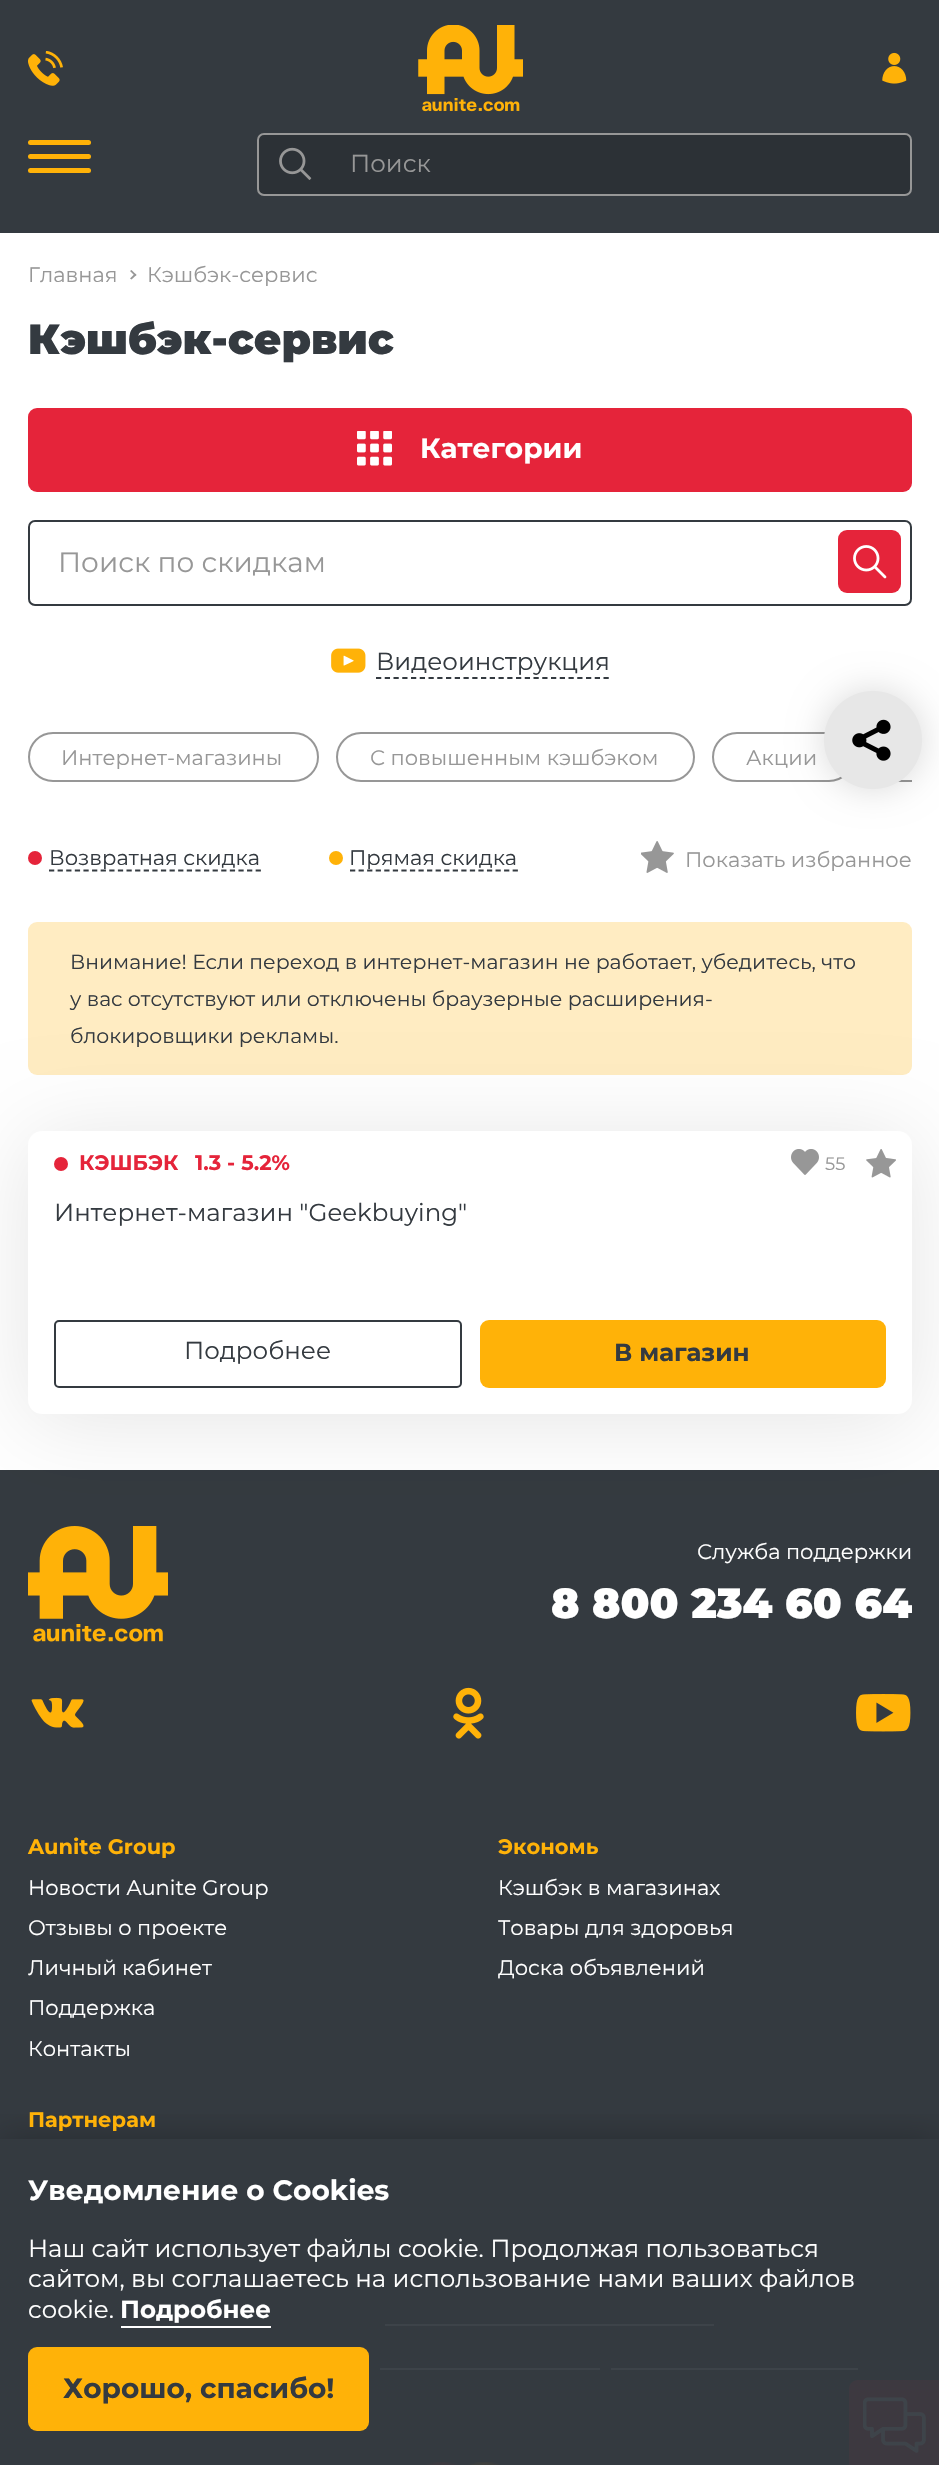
void draw(SkCanvas* canvas) {
	SkPaint fill;
	fill.setAntiAlias(true);
	auto makeFont = [&](const char* family, int weight, float size, bool italic = false) {
		SkFontStyle style(weight, SkFontStyle::kNormal_Width,
			italic ? SkFontStyle::kItalic_Slant : SkFontStyle::kUpright_Slant);
		SkFont result(fontMgr->matchFamilyStyle(family, style), size);
		result.setSubpixel(true);
		return result;
	};
	auto text = [&](const char* s, float x, float y, const SkFont& font) {
		canvas->drawString(s, x, y, font, fill);
	};
	auto box = [&](float l, float t, float r, float b) {
		canvas->drawRect(SkRect::MakeLTRB(l, t, r, b), fill);
	};
	auto roundBox = [&](float l, float t, float r, float b, float radius) {
		canvas->drawRoundRect(SkRect::MakeLTRB(l, t, r, b), radius, radius, fill);
	};
	auto picture = [&](const char* path, float l, float t, float r, float b) {
		auto image = SkImages::DeferredFromEncodedData(SkData::MakeFromFileName(path));
		canvas->drawImageRect(image, SkRect::MakeLTRB(l, t, r, b), SkSamplingOptions());
	};
	canvas->clear(0xFFFFFFFF);
	fill.setColor(0xFF343A40);
	box(0, 0, 939, 233);
	picture("image0.png", 28, 51, 63, 86);
	picture("image1.png", 418, 25, 523, 112);
	picture("image2.png", 882, 52, 907, 84);
	fill.setColor(0xFFFFB208);
	roundBox(28, 140, 91, 145, 2.5f);
	roundBox(28, 154, 91, 159, 2.5f);
	roundBox(28, 168, 91, 173, 2.5f);
	fill.setColor(0xFF2C3136);
	canvas->drawRoundRect(SkRect::MakeLTRB(258, 134, 911, 195), 6, 6, fill);
	fill.setStyle(SkPaint::kStroke_Style);
	fill.setStrokeWidth(2);
	fill.setColor(0xFF979797);
	canvas->drawRoundRect(SkRect::MakeLTRB(258, 134, 911, 195), 6, 6, fill);
	picture("image3.png", 279, 147, 312, 180);
	fill.setStyle(SkPaint::kFill_Style);
	canvas->drawPath(SkPathBuilder().moveTo(131.5f, 270).lineTo(136.5f, 275).lineTo(135, 276).lineTo(130, 271).close().detach(), fill);
	canvas->drawPath(SkPathBuilder().moveTo(135, 273.5f).lineTo(136.5f, 275).lineTo(131.5f, 279.5f).lineTo(130, 278.5f).close().detach(), fill);
	fill.setColor(0xFFE5243A);
	roundBox(28, 408, 912, 492, 9);
	picture("image4.png", 357, 431, 392, 466);
	fill.setStyle(SkPaint::kStroke_Style);
	fill.setColor(0xFF343A40);
	canvas->drawRoundRect(SkRect::MakeLTRB(29, 521, 911, 605), 6, 6, fill);
	fill.setStyle(SkPaint::kFill_Style);
	fill.setColor(0xFFE5243A);
	roundBox(838, 530, 901, 593, 9);
	picture("image5.png", 853, 545, 887, 579);
	picture("image6.png", 331, 648, 366, 673);
	fill.setStyle(SkPaint::kStroke_Style);
	fill.setStrokeWidth(1.8f);
	fill.setColor(0xFF343A40);
	fill.setPathEffect(SkDashPathEffect::Make({{5.25f, 3.5f}}, 0));
	canvas->drawPath(SkPathBuilder().moveTo(376, 678).lineTo(609, 678).detach(), fill);
	fill.setPathEffect(nullptr);
	fill.setStrokeWidth(2);
	fill.setColor(0xFF979797);
	canvas->drawRoundRect(SkRect::MakeLTRB(29, 733, 318, 781), 24, 24, fill);
	canvas->drawRoundRect(SkRect::MakeLTRB(337, 733, 694, 781), 24, 24, fill);
	canvas->drawRoundRect(SkRect::MakeLTRB(713, 733, 853, 781), 24, 24, fill);
	canvas->save();
	canvas->clipRect(SkRect::MakeLTRB(28, 723, 912, 802));
	canvas->drawRoundRect(SkRect::MakeLTRB(873, 733, 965, 781), 24, 24, fill);
	canvas->restore();
	fill.setStyle(SkPaint::kFill_Style);
	fill.setColor(0xFFE5243A);
	canvas->drawCircle(35, 858, 7, fill);
	fill.setStyle(SkPaint::kStroke_Style);
	fill.setStrokeWidth(1.8f);
	fill.setColor(0xFF343A40);
	fill.setPathEffect(SkDashPathEffect::Make({{5.25f, 3.36f}}, 0));
	canvas->drawPath(SkPathBuilder().moveTo(49, 870.5f).lineTo(261, 870.5f).detach(), fill);
	fill.setPathEffect(nullptr);
	fill.setStyle(SkPaint::kFill_Style);
	fill.setColor(0xFFFFB208);
	canvas->drawCircle(336, 858, 7, fill);
	fill.setStyle(SkPaint::kStroke_Style);
	fill.setColor(0xFF343A40);
	fill.setPathEffect(SkDashPathEffect::Make({{5.25f, 3.31f}}, 0));
	canvas->drawPath(SkPathBuilder().moveTo(350, 870.5f).lineTo(518, 870.5f).detach(), fill);
	fill.setPathEffect(nullptr);
	picture("image7.png", 641, 841, 674, 873);
	fill.setStyle(SkPaint::kFill_Style);
	fill.setColor(0xFFFFECC2);
	roundBox(28, 922, 912, 1075, 9);
	fill.setColor(0xFF343A40);
	box(0, 1470, 939, 2465);
	picture("image11.png", 28, 1526, 168, 1642);
	fill.setColor(0x1A000000);
	fill.setMaskFilter(SkMaskFilter::MakeBlur(kNormal_SkBlurStyle, 44));
	canvas->drawRoundRect(SkRect::MakeLTRB(28, 1138, 912, 1421), 14, 14, fill);
	fill.setMaskFilter(nullptr);
	fill.setColor(0xFFFFFFFF);
	roundBox(28, 1131, 912, 1414, 14);
	fill.setColor(0xFFE5243A);
	canvas->drawCircle(61, 1164, 7, fill);
	picture("image8.png", 791, 1149, 819, 1175);
	picture("image9.png", 866, 1149, 896, 1178);
	fill.setStyle(SkPaint::kStroke_Style);
	fill.setStrokeWidth(2);
	fill.setColor(0xFF343A40);
	canvas->drawRoundRect(SkRect::MakeLTRB(55, 1321, 461, 1387), 4, 4, fill);
	fill.setStyle(SkPaint::kFill_Style);
	fill.setColor(0xFFFFB208);
	roundBox(480, 1320, 886, 1388, 9);
	fill.setColor(0x26000000);
	fill.setMaskFilter(SkMaskFilter::MakeBlur(kNormal_SkBlurStyle, 17.5f));
	canvas->drawRoundRect(SkRect::MakeLTRB(824, 691, 922, 789), 49, 49, fill);
	fill.setMaskFilter(nullptr);
	fill.setColor(0xFFE7E7E7);
	canvas->drawCircle(873, 740, 49, fill);
	picture("image10.png", 852, 719, 891, 761);
	picture("image12.png", 31, 1697, 84, 1728);
	picture("image13.png", 453, 1687, 484, 1739);
	picture("image14.png", 856, 1694, 911, 1732);
	fill.setColor(0xFF3D4349);
	box(385, 2324, 714, 2326);
	box(380, 2368, 600, 2370);
	box(611, 2368, 858, 2370);
	picture("image15.png", 426, 2462, 500, 2465);
	fill.setColor(0xFF3D3940);
	canvas->drawPath(SkPathBuilder().moveTo(858, 2380).lineTo(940, 2380).lineTo(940, 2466).lineTo(849, 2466).lineTo(849, 2389).cubicTo(849, 2384, 853, 2380, 858, 2380).close().detach(), fill);
	picture("image16.png", 863, 2397, 926, 2453);
	canvas->save();
	canvas->clipRect(SkRect::MakeLTRB(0, 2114, 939, 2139));
	fill.setColor(0x40000000);
	fill.setMaskFilter(SkMaskFilter::MakeBlur(kNormal_SkBlurStyle, 17.5f));
	canvas->drawRect(SkRect::MakeLTRB(0, 2139, 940, 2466), fill);
	fill.setMaskFilter(nullptr);
	canvas->restore();
	fill.setColor(0xFFFFFFFF);
	box(121, 2326, 271, 2328);
	fill.setColor(0xFFFFB208);
	roundBox(28, 2347, 369, 2431, 9);
	auto font1 = makeFont("Montserrat", 400, 24.5f);
	fill.setColor(0xFF979797);
	text("Поиск", 350, 172, font1);
	auto font2 = makeFont("Montserrat", 400, 21);
	text("Главная", 28, 282, font2);
	text("Кэшбэк-сервис", 147, 282, font2);
	auto font3 = makeFont("Montserrat", 900, 42);
	fill.setColor(0xFF343A40);
	text("Кэшбэк-сервис", 28, 354, font3);
	auto font4 = makeFont("Montserrat", 700, 28);
	fill.setColor(0xFFFFFFFF);
	text("Категории", 420, 458, font4);
	auto font5 = makeFont("Montserrat", 400, 28);
	fill.setColor(0xFF979797);
	text("Поиск по скидкам", 58, 572, font5);
	fill.setColor(0xFF343A40);
	text("Видеоинструкция", 376, 670, font1);
	fill.setColor(0xFF979797);
	text("Интернет-магазины", 61, 765, font2);
	text("С повышенным кэшбэком", 370, 765, font2);
	text("Акции", 746, 765, font2);
	fill.setColor(0xFF343A40);
	text("Возвратная скидка", 49, 865, font2);
	text("Прямая скидка", 349, 865, font2);
	fill.setColor(0xFF979797);
	text("Показать избранное", 685, 867, font2);
	auto font6 = makeFont("Montserrat", 400, 20.4f);
	fill.setColor(0xFF343A40);
	text("Внимание! Если переход в интернет-магазин не работает, убедитесь, что", 70, 969, font6);
	text("у вас отсутствуют или отключены браузерные расширения-", 70, 1006, font6);
	text("блокировщики рекламы.", 70, 1043, font6);
	auto font7 = makeFont("Montserrat", 700, 21);
	fill.setColor(0xFFE5243A);
	text("КЭШБЭК", 79, 1170, font7);
	text("1.3 - 5.2%", 195, 1170, font7);
	auto font8 = makeFont("Montserrat", 400, 18);
	fill.setColor(0xFF979797);
	text("55", 825, 1170, font8);
	fill.setColor(0xFF343A40);
	text("Интернет-магазин \"Geekbuying\"", 54, 1221, font1);
	text("Подробнее", 184, 1359, font1);
	auto font9 = makeFont("Montserrat", 700, 24.5f);
	text("В магазин", 614, 1361, font9);
	fill.setColor(0xFFFFFFFF);
	text("Служба поддержки", 697, 1559, font2);
	text("8 800 234 60 64", 551, 1618, font3);
	fill.setColor(0xFFFFB208);
	text("Aunite Group", 28, 1854, font7);
	fill.setColor(0xFFFFFFFF);
	text("Новости Aunite Group", 28, 1895, font2);
	text("Отзывы о проекте", 28, 1935, font2);
	text("Личный кабинет", 28, 1975, font2);
	text("Поддержка", 28, 2015, font2);
	text("Контакты", 28, 2056, font2);
	fill.setColor(0xFFFFB208);
	text("Экономь", 498, 1854, font7);
	fill.setColor(0xFFFFFFFF);
	text("Кэшбэк в магазинах", 498, 1895, font2);
	text("Товары для здоровья", 498, 1935, font2);
	text("Доска объявлений", 498, 1975, font2);
	fill.setColor(0xFFFFB208);
	text("Партнерам", 28, 2127, font7);
	fill.setColor(0xFFFFFFFF);
	text("Уведомление о Cookies", 28, 2200, font4);
	text("Наш сайт использует файлы cookie. Продолжая пользоваться", 28, 2257, font1);
	text("сайтом, вы соглашаетесь на использование нами ваших файлов", 28, 2287, font1);
	text("cookie.", 28, 2318, font1);
	text("Подробнее", 120, 2318, font9);
	fill.setColor(0xFF343A40);
	text("Хорошо, спасибо!", 63, 2398, font4);
}
